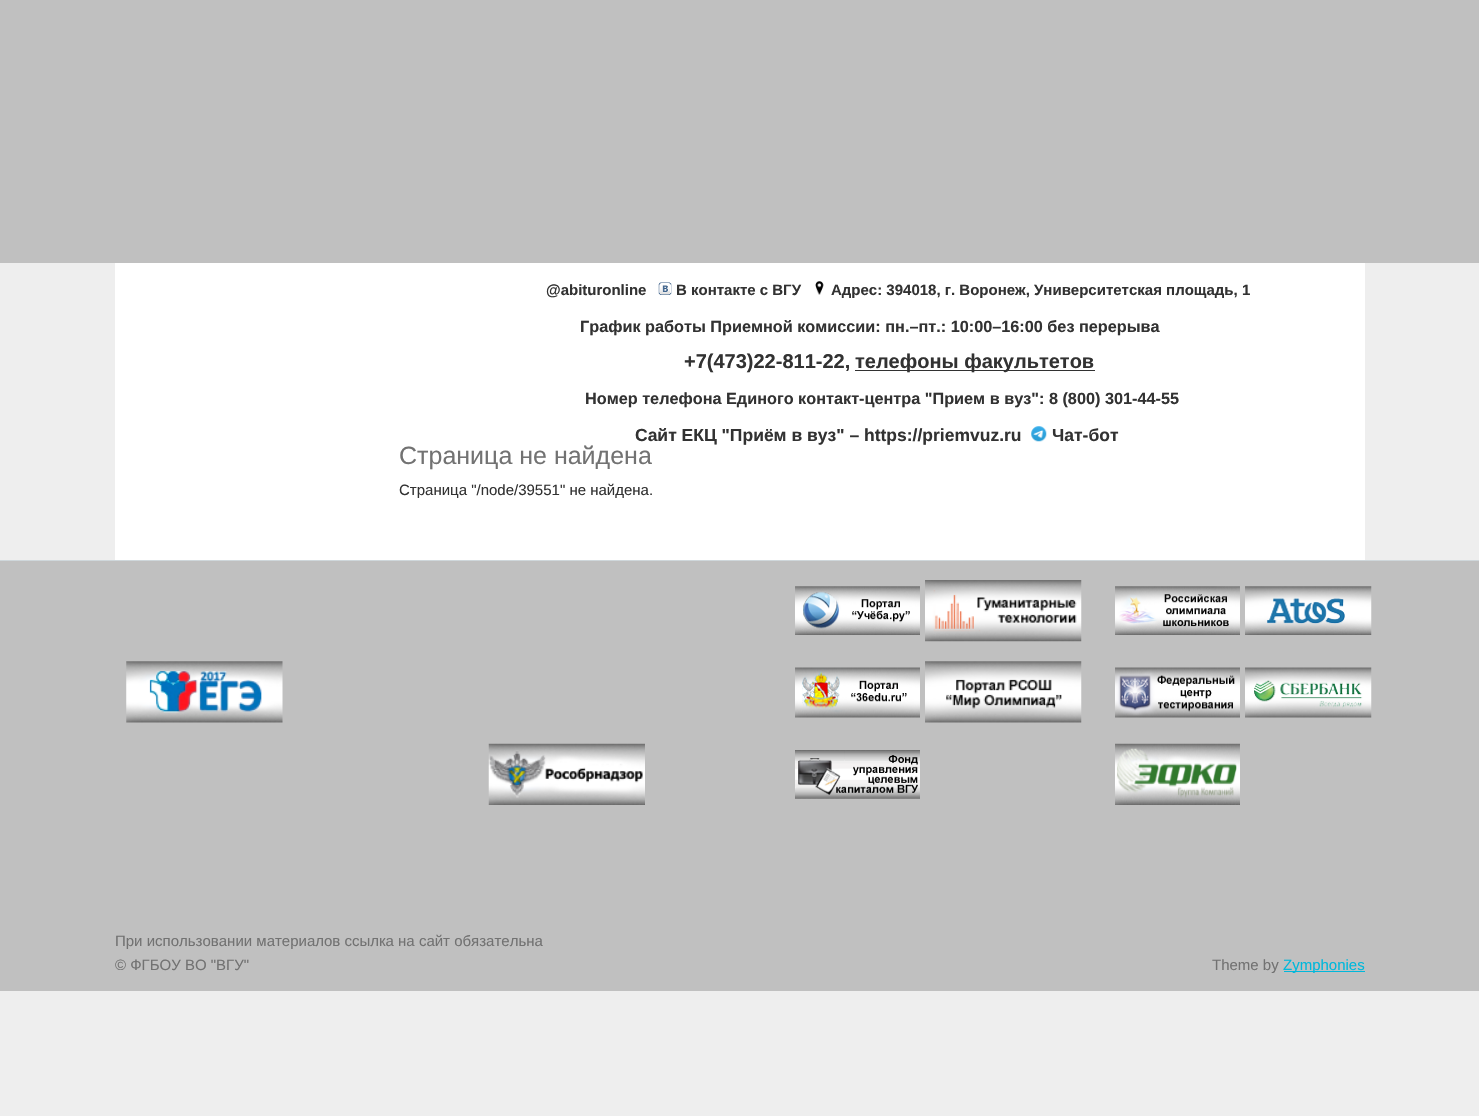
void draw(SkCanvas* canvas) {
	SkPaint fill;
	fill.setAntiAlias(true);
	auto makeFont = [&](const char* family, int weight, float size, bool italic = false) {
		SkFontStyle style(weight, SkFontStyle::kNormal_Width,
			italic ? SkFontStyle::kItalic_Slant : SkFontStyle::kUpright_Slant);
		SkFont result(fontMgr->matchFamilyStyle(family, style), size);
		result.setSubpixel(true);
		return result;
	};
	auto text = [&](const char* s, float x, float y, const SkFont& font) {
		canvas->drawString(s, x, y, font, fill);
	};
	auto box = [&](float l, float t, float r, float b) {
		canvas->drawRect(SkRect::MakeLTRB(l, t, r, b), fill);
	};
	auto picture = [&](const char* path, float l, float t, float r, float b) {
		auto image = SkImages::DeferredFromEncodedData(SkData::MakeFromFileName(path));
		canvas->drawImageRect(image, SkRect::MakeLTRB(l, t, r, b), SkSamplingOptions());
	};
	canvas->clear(0xFFEEEEEE);
	fill.setColor(0xFFC0C0C0);
	box(0, 0, 1479, 263);
	fill.setColor(0xFFFFFFFF);
	box(115, 263, 1365, 560);
	picture("image0.png", 658, 282, 672, 295);
	picture("image1.png", 815, 281, 824, 295);
	fill.setColor(0xFF323232);
	box(855, 370, 1095, 371);
	picture("image2.png", 1031, 426, 1047, 442);
	fill.setColor(0xFFCFD7DB);
	box(0, 560, 1479, 561);
	fill.setColor(0xFFC0C0C0);
	box(0, 561, 1479, 991);
	picture("image3.png", 795, 586, 920, 635);
	picture("image4.png", 925, 580, 1082, 642);
	picture("image5.png", 1115, 586, 1240, 635);
	picture("image6.png", 1245, 586, 1372, 635);
	picture("image7.png", 126, 661, 283, 723);
	picture("image8.png", 795, 667, 920, 718);
	picture("image9.png", 925, 661, 1082, 723);
	picture("image10.png", 1115, 667, 1240, 718);
	picture("image11.png", 1245, 667, 1372, 718);
	picture("image12.png", 488, 743, 645, 805);
	picture("image13.png", 795, 750, 920, 799);
	picture("image14.png", 1115, 743, 1240, 805);
	fill.setColor(0xFF00B8DB);
	box(1284, 971, 1365, 972);
	auto font1 = makeFont("Liberation Sans", 700, 15);
	fill.setColor(0xFF323232);
	text("@abituronline", 546, 295, font1);
	text("В контакте с ВГУ", 676, 295, font1);
	text("Адрес: 394018, г. Воронеж, Университетская площадь, 1", 831, 295, font1);
	auto font2 = makeFont("Liberation Sans", 700, 16.25f);
	text("График работы Приемной комиссии: пн.–пт.: 10:00–16:00 без перерыва", 580, 332, font2);
	auto font3 = makeFont("Liberation Sans", 700, 20);
	text("+7(473)22-811-22,", 684, 368, font3);
	text("телефоны факультетов", 855, 368, font3);
	text("Номер телефона Единого контакт-центра \"Прием в вуз\": 8 (800) 301-44-55", 585, 404, font2);
	auto font4 = makeFont("Liberation Sans", 700, 17.5f);
	text("Сайт ЕКЦ \"Приём в вуз\" – https://priemvuz.ru", 635, 441, font4);
	text("Чат-бот", 1052, 441, font4);
	auto font5 = makeFont("Liberation Sans", 400, 25);
	fill.setColor(0xFF727272);
	text("Страница не найдена", 399, 464, font5);
	auto font6 = makeFont("Liberation Sans", 400, 15);
	fill.setColor(0xFF323232);
	text("Страница \"/node/39551\" не найдена.", 399, 495, font6);
	fill.setColor(0xFF727272);
	text("При использовании материалов ссылка на сайт обязательна", 115, 946, font6);
	text("© ФГБОУ ВО \"ВГУ\"", 115, 970, font6);
	text("Theme by", 1212, 970, font6);
	fill.setColor(0xFF00B8DB);
	text("Zymphonies", 1283, 970, font6);
}
